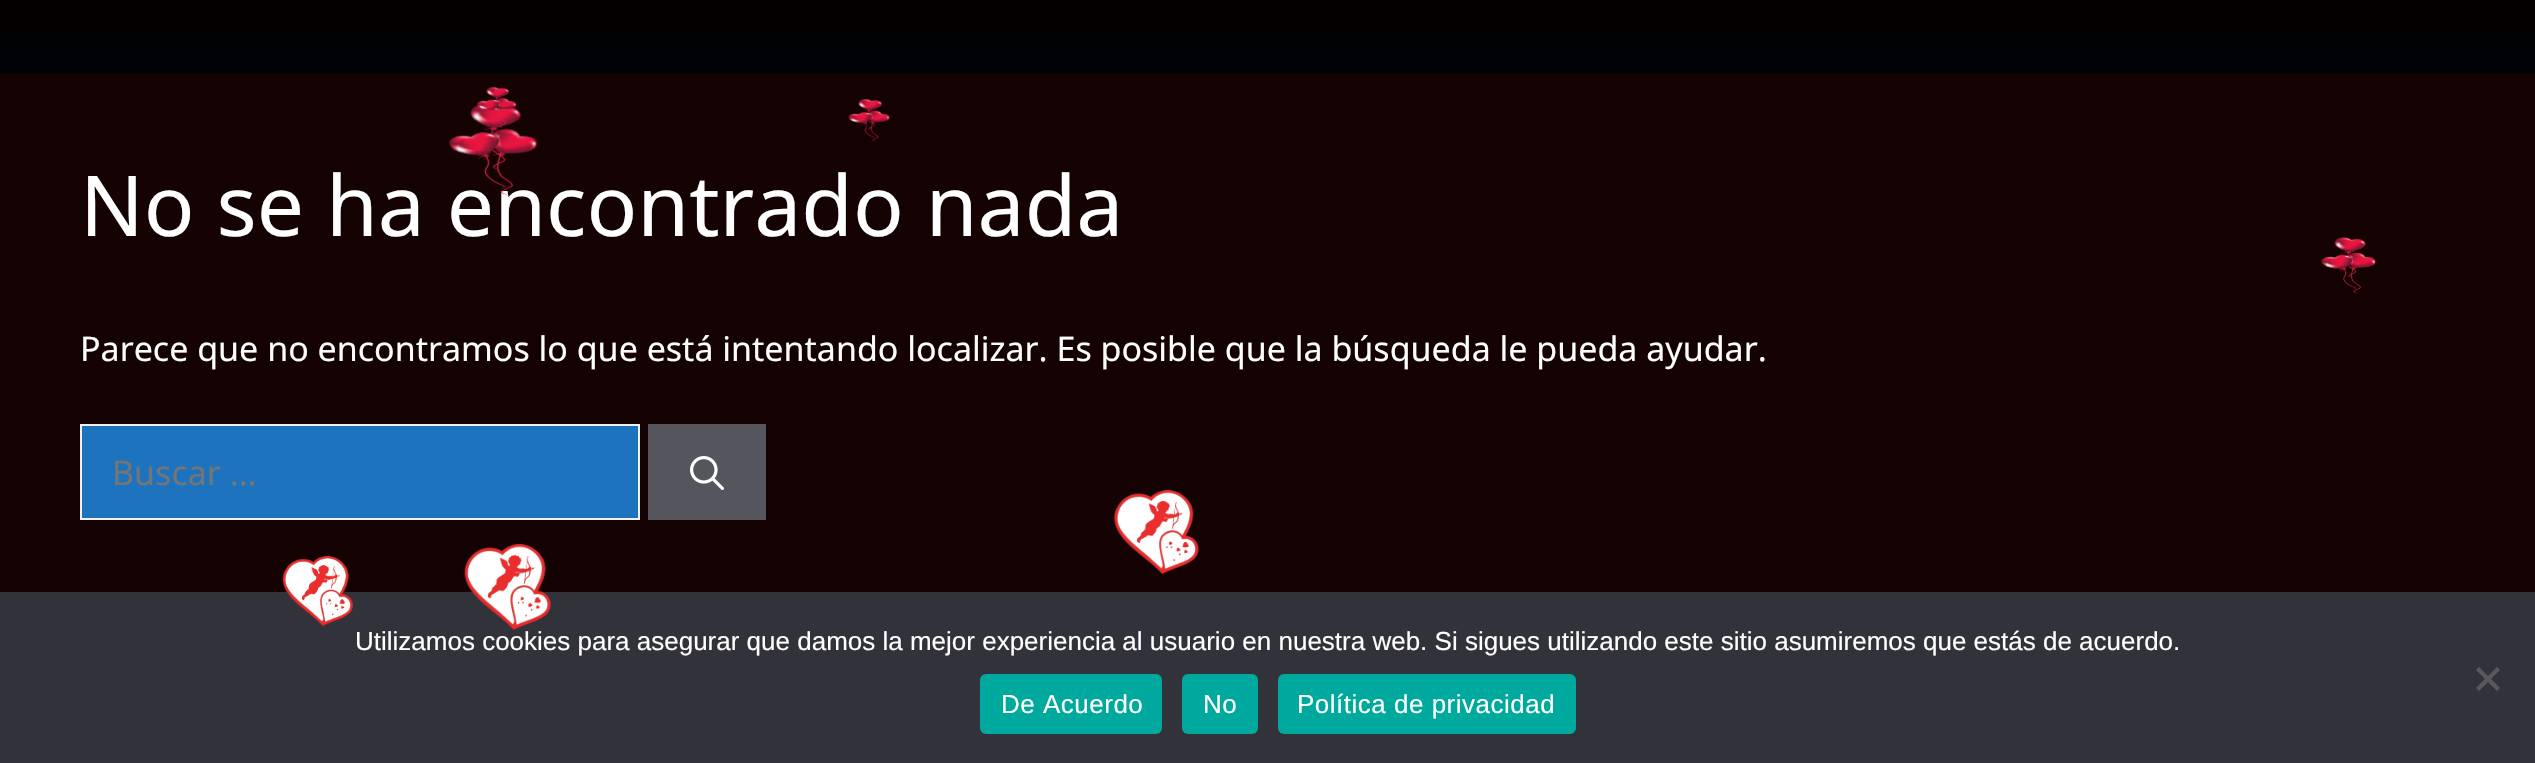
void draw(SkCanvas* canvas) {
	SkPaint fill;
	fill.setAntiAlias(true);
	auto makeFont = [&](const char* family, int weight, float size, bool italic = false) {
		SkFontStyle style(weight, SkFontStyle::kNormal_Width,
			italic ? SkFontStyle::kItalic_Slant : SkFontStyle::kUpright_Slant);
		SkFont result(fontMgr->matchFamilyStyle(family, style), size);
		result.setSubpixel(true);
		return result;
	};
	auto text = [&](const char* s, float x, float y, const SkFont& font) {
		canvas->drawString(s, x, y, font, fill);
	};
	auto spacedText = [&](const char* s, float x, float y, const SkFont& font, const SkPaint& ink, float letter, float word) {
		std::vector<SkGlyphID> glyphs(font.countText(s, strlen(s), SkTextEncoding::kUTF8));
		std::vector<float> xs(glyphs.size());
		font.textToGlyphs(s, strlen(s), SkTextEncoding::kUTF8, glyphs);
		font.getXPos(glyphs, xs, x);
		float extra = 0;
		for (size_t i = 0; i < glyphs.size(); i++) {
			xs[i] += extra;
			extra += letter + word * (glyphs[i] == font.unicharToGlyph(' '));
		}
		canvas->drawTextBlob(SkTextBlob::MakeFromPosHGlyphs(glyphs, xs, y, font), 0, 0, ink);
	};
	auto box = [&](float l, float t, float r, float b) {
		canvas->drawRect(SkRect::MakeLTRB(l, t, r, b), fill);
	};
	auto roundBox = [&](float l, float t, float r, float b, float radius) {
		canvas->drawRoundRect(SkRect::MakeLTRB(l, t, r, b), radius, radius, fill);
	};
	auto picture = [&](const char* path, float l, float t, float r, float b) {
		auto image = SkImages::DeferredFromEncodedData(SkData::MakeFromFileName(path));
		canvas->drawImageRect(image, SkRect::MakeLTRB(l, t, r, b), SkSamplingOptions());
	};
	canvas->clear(0xFF010205);
	fill.setColor(0xFF050000);
	box(0, 0, 2535, 34);
	fill.setColor(0xFF150202);
	box(0, 74, 2535, 592);
	picture("image1.png", 848, 98, 890, 142);
	fill.setColor(0xFF1E73BE);
	canvas->drawRect(SkRect::MakeLTRB(81, 425, 639, 519), fill);
	fill.setStyle(SkPaint::kStroke_Style);
	fill.setStrokeWidth(2);
	fill.setColor(0xFFF0F0F0);
	canvas->drawRect(SkRect::MakeLTRB(81, 425, 639, 519), fill);
	fill.setStyle(SkPaint::kFill_Style);
	fill.setColor(0xFF55555E);
	box(648, 424, 766, 520);
	picture("image3.png", 690, 456, 724, 490);
	picture("image4.png", 2321, 237, 2376, 294);
	picture("image5.png", 1114, 490, 1199, 574);
	fill.setColor(0xFF32323A);
	box(0, 592, 2535, 763);
	picture("image6.png", 282, 556, 353, 626);
	picture("image7.png", 464, 544, 551, 630);
	fill.setColor(0xFF59595D);
	canvas->drawPath(SkPathBuilder().moveTo(2497, 667).lineTo(2500, 670).lineTo(2479, 691).lineTo(2476, 688).close().detach(), fill);
	canvas->drawPath(SkPathBuilder().moveTo(2476, 670).lineTo(2479, 667).lineTo(2500, 688).lineTo(2497, 691).close().detach(), fill);
	fill.setColor(0xFF00A99D);
	roundBox(980, 674, 1162, 734, 6);
	roundBox(1182, 674, 1258, 734, 6);
	roundBox(1278, 674, 1576, 734, 6);
	auto font1 = makeFont("Noto Sans", 400, 84);
	fill.setColor(0xFFFFFFFF);
	text("No se ha encontrado nada", 80, 236, font1);
	picture("image2.png", 448, 104, 538, 196);
	picture("image0.png", 476, 86, 517, 128);
	auto font2 = makeFont("Noto Sans", 400, 34);
	text("Parece que no encontramos lo que está intentando localizar. Es posible que la búsqueda le pueda ayudar.", 80, 361, font2);
	fill.setColor(0xFF757575);
	text("Buscar …", 112, 485, font2);
	auto font3 = makeFont("Liberation Sans", 400, 26);
	fill.setColor(0xFFFFFFFF);
	text("Utilizamos cookies para asegurar que damos la mejor experiencia al usuario en nuestra web. Si sigues utilizando este sitio asumiremos que estás de acuerdo.", 355, 650, font3);
	spacedText("De Acuerdo", 1001, 713, font3, fill, 0.5f, 0);
	spacedText("No", 1203, 713, font3, fill, 0.5f, 0);
	spacedText("Política de privacidad", 1297, 713, font3, fill, 0.5f, 0);
}
